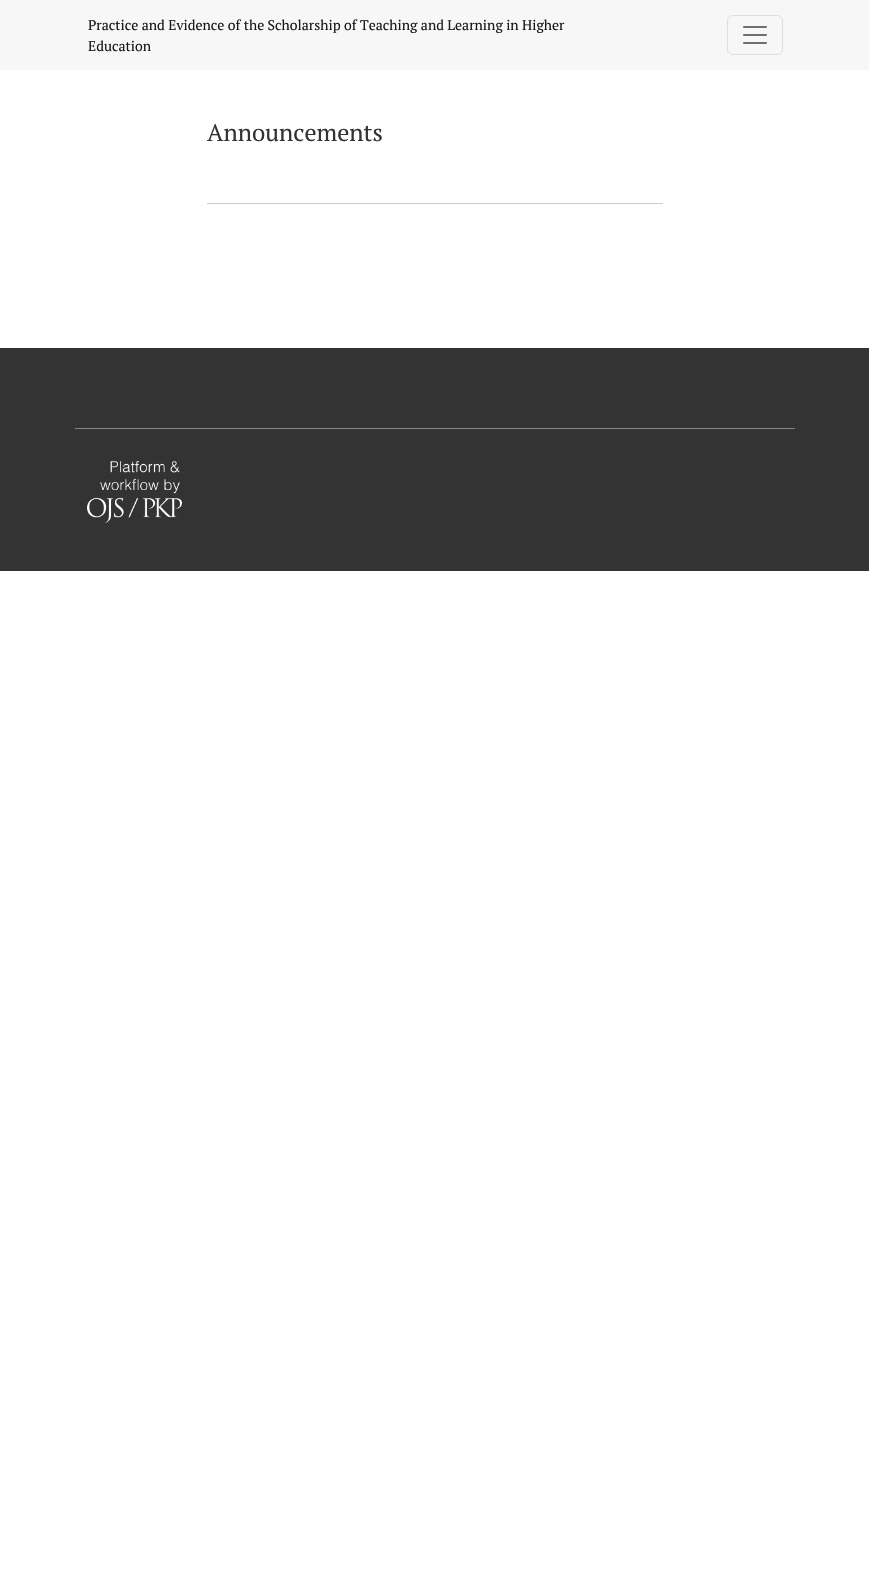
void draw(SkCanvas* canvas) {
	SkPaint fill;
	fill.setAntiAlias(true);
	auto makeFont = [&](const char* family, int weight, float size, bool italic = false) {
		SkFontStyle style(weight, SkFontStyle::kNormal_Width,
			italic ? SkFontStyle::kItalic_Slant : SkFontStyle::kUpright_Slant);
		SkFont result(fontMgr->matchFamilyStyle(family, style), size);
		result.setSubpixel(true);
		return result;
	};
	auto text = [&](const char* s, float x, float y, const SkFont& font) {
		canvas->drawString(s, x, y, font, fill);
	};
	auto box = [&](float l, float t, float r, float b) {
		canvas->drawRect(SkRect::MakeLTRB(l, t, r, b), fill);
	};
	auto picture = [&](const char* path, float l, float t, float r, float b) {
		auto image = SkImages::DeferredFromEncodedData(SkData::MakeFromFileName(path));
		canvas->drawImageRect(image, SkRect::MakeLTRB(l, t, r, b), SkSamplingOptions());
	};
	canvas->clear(0xFFFFFFFF);
	fill.setColor(0xFFF7F7F7);
	box(0, 0, 869, 70);
	fill.setStyle(SkPaint::kStroke_Style);
	fill.setStrokeWidth(1);
	fill.setColor(0xFFDEDEDE);
	canvas->drawRoundRect(SkRect::MakeLTRB(727.5f, 15.5f, 782.5f, 54.5f), 5.5f, 5.5f, fill);
	picture("image0.png", 743, 26, 767, 44);
	fill.setStyle(SkPaint::kFill_Style);
	fill.setColor(0xFFCCCCCC);
	box(207, 203, 663, 204);
	fill.setColor(0xFF333333);
	box(0, 348, 869, 571);
	fill.setColor(0xFF858585);
	box(75, 428, 795, 429);
	picture("image1.png", 87, 461, 182, 523);
	auto font1 = makeFont("PT Serif", 400, 14);
	fill.setColor(0xFF191919);
	text("Practice and Evidence of the Scholarship of Teaching and Learning in Higher", 88, 30, font1);
	text("Education", 88, 51, font1);
	auto font2 = makeFont("PT Serif", 400, 24);
	fill.setColor(0xFF333333);
	text("Announcements", 207, 141, font2);
}
